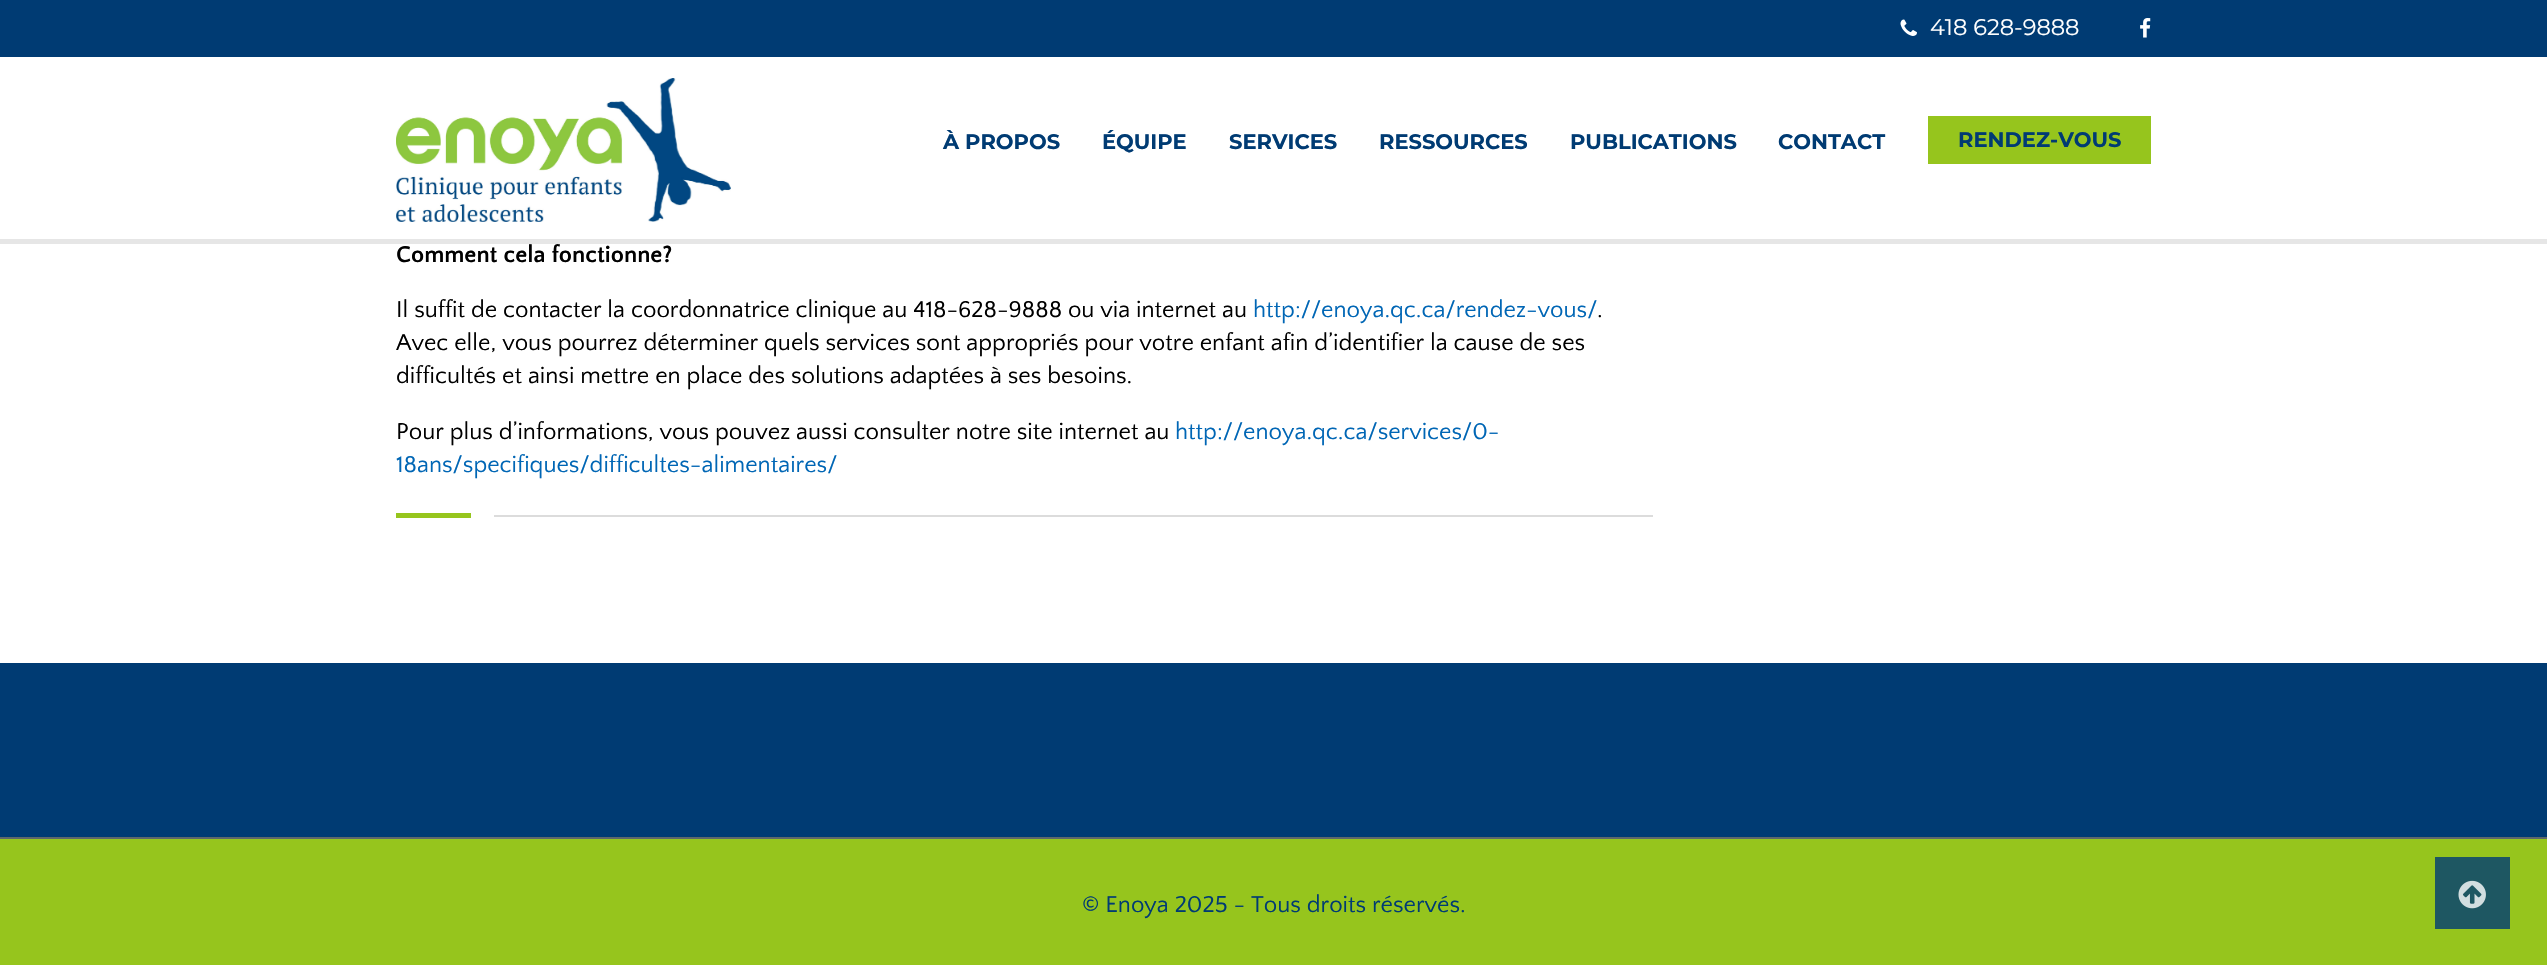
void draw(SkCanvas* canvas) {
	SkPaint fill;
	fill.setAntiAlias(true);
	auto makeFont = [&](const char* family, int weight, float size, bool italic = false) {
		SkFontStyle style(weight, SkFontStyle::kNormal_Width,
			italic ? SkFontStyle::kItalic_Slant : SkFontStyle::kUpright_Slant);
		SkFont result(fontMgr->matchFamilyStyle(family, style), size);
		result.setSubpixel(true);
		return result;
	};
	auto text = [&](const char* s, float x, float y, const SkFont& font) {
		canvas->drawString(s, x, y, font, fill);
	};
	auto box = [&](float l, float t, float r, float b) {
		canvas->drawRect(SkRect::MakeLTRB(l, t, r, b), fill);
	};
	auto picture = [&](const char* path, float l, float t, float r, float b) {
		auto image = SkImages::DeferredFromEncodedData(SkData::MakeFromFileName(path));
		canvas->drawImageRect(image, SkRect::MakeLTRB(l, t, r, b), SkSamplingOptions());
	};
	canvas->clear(0xFF003B73);
	fill.setColor(0xFFFFFFFF);
	box(0, 244, 2547, 663);
	picture("image0.png", 1900, 19, 1917, 36);
	picture("image1.png", 2140, 18, 2151, 38);
	box(0, 57, 2547, 239);
	picture("image2.png", 396, 78, 731, 222);
	fill.setColor(0xFF96C51D);
	box(1928, 116, 2151, 164);
	fill.setColor(0xFFE6E6E6);
	box(0, 239, 2547, 244);
	fill.setColor(0xFF96C51D);
	box(396, 513, 471, 518);
	fill.setColor(0xFFDCDCDC);
	box(494, 515, 1653, 517);
	fill.setColor(0xFF96C51D);
	box(0, 839, 2547, 965);
	fill.setColor(0xFF5E676B);
	box(0, 837, 2547, 839);
	fill.setColor(0xFF1E5762);
	box(2435, 857, 2510, 929);
	picture("image3.png", 2458, 880, 2486, 909);
	auto font1 = makeFont("Montserrat", 400, 22.5f);
	fill.setColor(0xFFFFFFFF);
	text("418 628-9888", 1930, 35, font1);
	auto font2 = makeFont("Montserrat", 700, 21);
	fill.setColor(0xFF003B73);
	text("À PROPOS", 943, 149, font2);
	text("ÉQUIPE", 1102, 149, font2);
	text("SERVICES", 1229, 149, font2);
	text("RESSOURCES", 1379, 149, font2);
	text("PUBLICATIONS", 1570, 149, font2);
	text("CONTACT", 1778, 149, font2);
	text("RENDEZ-VOUS", 1958, 147, font2);
	auto font3 = makeFont("Quattrocento Sans", 700, 24);
	fill.setColor(0xFF000000);
	text("Comment cela fonctionne?", 396, 262, font3);
	auto font4 = makeFont("Quattrocento Sans", 400, 24);
	text("Il suffit de contacter la coordonnatrice clinique au 418-628-9888 ou via internet au", 396, 317, font4);
	fill.setColor(0xFF0066B5);
	text("http://enoya.qc.ca/rendez-vous/", 1253, 317, font4);
	fill.setColor(0xFF000000);
	text(".", 1597, 317, font4);
	text("Avec elle, vous pourrez déterminer quels services sont appropriés pour votre enfant afin d’identifier la cause de ses", 396, 350, font4);
	text("difficultés et ainsi mettre en place des solutions adaptées à ses besoins.", 396, 383, font4);
	text("Pour plus d’informations, vous pouvez aussi consulter notre site internet au", 396, 439, font4);
	fill.setColor(0xFF0066B5);
	text("http://enoya.qc.ca/services/0-", 1175, 439, font4);
	text("18ans/specifiques/difficultes-alimentaires/", 396, 472, font4);
	fill.setColor(0xFF003B73);
	text("© Enoya 2025 - Tous droits réservés.", 1082, 912, font4);
}
